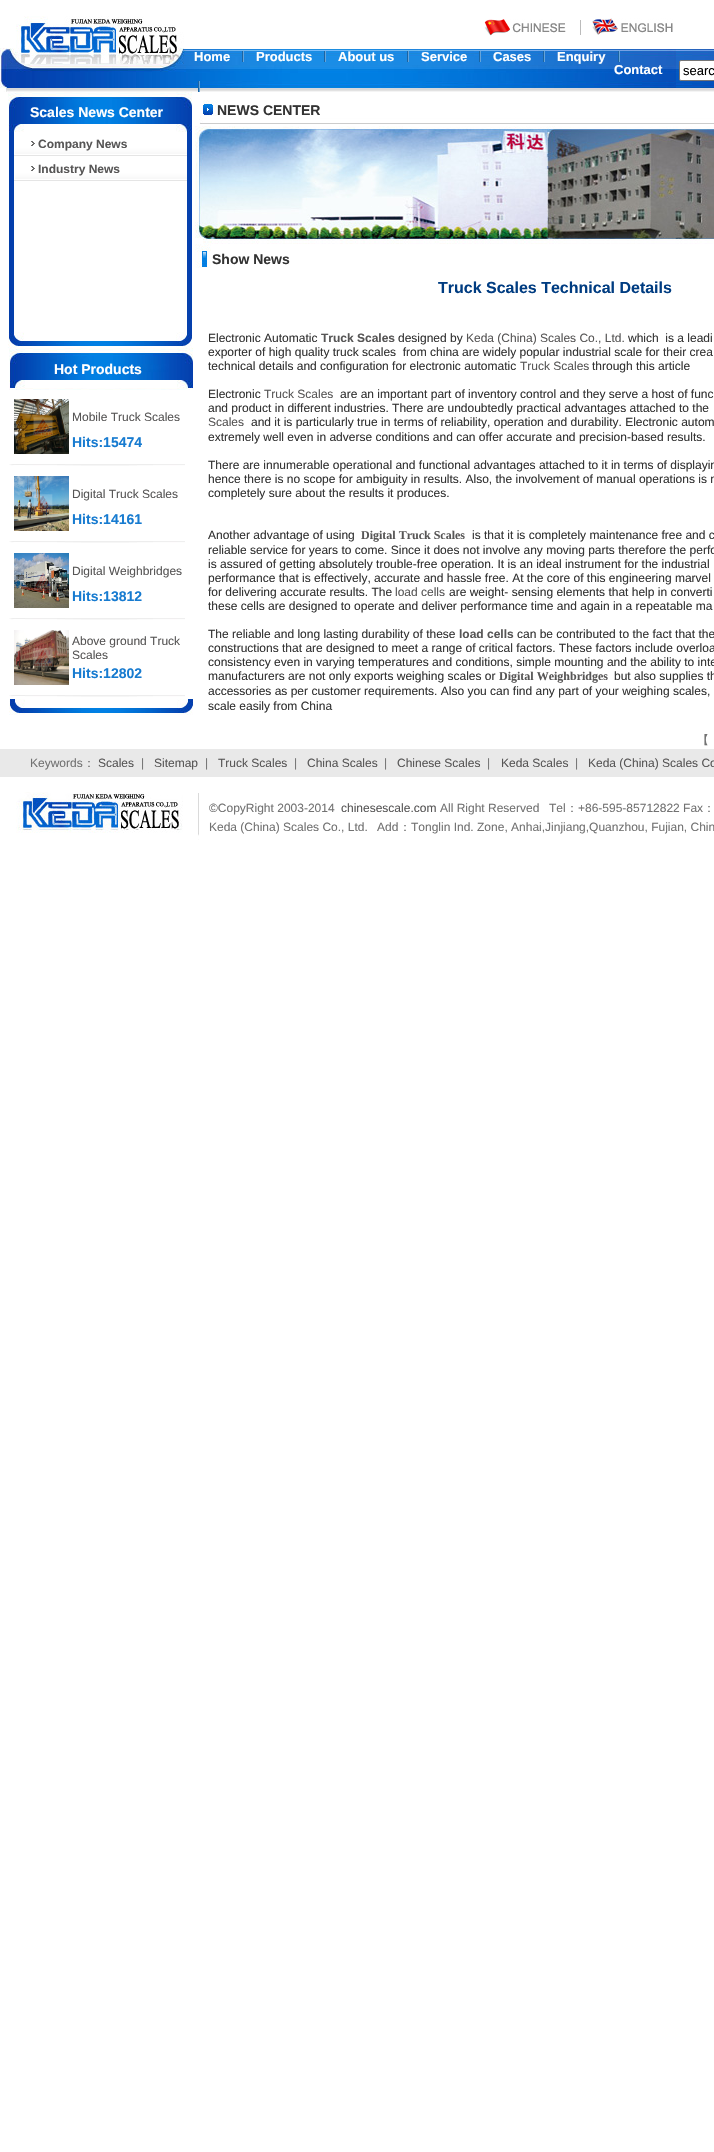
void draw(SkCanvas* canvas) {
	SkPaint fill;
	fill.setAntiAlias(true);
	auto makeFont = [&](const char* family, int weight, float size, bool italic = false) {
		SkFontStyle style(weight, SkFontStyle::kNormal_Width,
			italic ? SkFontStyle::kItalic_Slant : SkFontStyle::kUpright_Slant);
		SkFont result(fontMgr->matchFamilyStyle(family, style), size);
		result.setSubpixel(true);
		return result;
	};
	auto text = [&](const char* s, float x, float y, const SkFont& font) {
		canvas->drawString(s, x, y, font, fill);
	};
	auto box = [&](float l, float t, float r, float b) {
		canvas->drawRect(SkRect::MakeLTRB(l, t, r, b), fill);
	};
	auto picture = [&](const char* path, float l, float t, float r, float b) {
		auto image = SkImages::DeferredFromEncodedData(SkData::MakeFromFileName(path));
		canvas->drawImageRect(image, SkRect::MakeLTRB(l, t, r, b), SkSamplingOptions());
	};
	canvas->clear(0xFFFFFFFF);
	picture("image0.png", 0, 16, 186, 92);
	picture("image1.png", 484, 19, 566, 36);
	fill.setColor(0xFFBBBBBB);
	box(580, 20, 581, 35);
	picture("image2.png", 592, 18, 673, 35);
	picture("image3.png", 186, 49, 676, 92);
	picture("image4.png", 242, 51, 244, 62);
	picture("image4.png", 324, 51, 326, 62);
	picture("image4.png", 407, 51, 409, 62);
	picture("image4.png", 479, 51, 481, 62);
	picture("image4.png", 543, 51, 545, 62);
	picture("image4.png", 618, 51, 620, 62);
	picture("image4.png", 198, 81, 200, 92);
	picture("image5.png", 676, 49, 714, 92);
	fill.setColor(0xFFFFFFFF);
	canvas->drawRoundRect(SkRect::MakeLTRB(679.5f, 60.5f, 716.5f, 80.5f), 1.5f, 1.5f, fill);
	fill.setStyle(SkPaint::kStroke_Style);
	fill.setStrokeWidth(1);
	fill.setColor(0xFF767676);
	canvas->drawRoundRect(SkRect::MakeLTRB(679.5f, 60.5f, 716.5f, 80.5f), 1.5f, 1.5f, fill);
	picture("image6.png", 8, 92, 192, 132);
	picture("image7.png", 9, 132, 192, 332);
	picture("image8.png", 14, 132, 191, 156);
	picture("image9.png", 31, 141, 35, 146);
	picture("image8.png", 14, 157, 191, 181);
	picture("image9.png", 31, 166, 35, 171);
	picture("image10.png", 8, 332, 192, 348);
	picture("image11.png", 9, 348, 193, 390);
	picture("image12.png", 14, 399, 69, 454);
	picture("image13.png", 9, 464, 185, 466);
	picture("image14.png", 14, 476, 69, 531);
	picture("image13.png", 9, 541, 185, 543);
	picture("image15.png", 14, 553, 69, 608);
	picture("image13.png", 9, 618, 185, 620);
	picture("image16.png", 14, 630, 69, 685);
	picture("image13.png", 9, 695, 185, 697);
	picture("image10.png", 9, 699, 193, 715);
	picture("image17.png", 199, 100, 714, 124);
	picture("image18.png", 195, 126, 714, 244);
	picture("image19.png", 195, 244, 211, 268);
	fill.setStyle(SkPaint::kFill_Style);
	fill.setColor(0xFFE9E9E9);
	box(0, 749, 714, 777);
	picture("image20.png", 16, 792, 183, 833);
	picture("image21.png", 198, 793, 199, 840);
	auto font1 = makeFont("Liberation Sans", 700, 13);
	fill.setColor(0xFFFFFFFF);
	text("Home", 194, 61, font1);
	text("Products", 256, 61, font1);
	text("About us", 338, 61, font1);
	text("Service", 421, 61, font1);
	text("Cases", 493, 61, font1);
	text("Enquiry", 557, 61, font1);
	text("Contact", 614, 74, font1);
	auto font2 = makeFont("Liberation Sans", 400, 13);
	fill.setColor(0xFF000000);
	text("searc", 683, 75, font2);
	auto font3 = makeFont("Liberation Sans", 700, 14);
	fill.setColor(0xFFFFFFFF);
	text("Scales News Center", 30, 117, font3);
	auto font4 = makeFont("Liberation Sans", 700, 12);
	fill.setColor(0xFF575656);
	text("Company News", 38, 148, font4);
	text("Industry News", 38, 173, font4);
	fill.setColor(0xFFFFFFFF);
	text("Hot Products", 54, 374, font3);
	auto font5 = makeFont("Liberation Sans", 400, 12);
	fill.setColor(0xFF575656);
	text("Mobile Truck Scales", 72, 421, font5);
	fill.setColor(0xFF177BD0);
	text("Hits:15474", 72, 447, font3);
	fill.setColor(0xFF575656);
	text("Digital Truck Scales", 72, 498, font5);
	fill.setColor(0xFF177BD0);
	text("Hits:14161", 72, 524, font3);
	fill.setColor(0xFF575656);
	text("Digital Weighbridges", 72, 575, font5);
	fill.setColor(0xFF177BD0);
	text("Hits:13812", 72, 601, font3);
	fill.setColor(0xFF575656);
	text("Above ground Truck", 72, 645, font5);
	text("Scales", 72, 659, font5);
	fill.setColor(0xFF177BD0);
	text("Hits:12802", 72, 678, font3);
	fill.setColor(0xFF333333);
	text("NEWS CENTER", 217, 115, font3);
	text("Show News", 212, 264, font3);
	auto font6 = makeFont("Liberation Sans", 700, 16);
	fill.setColor(0xFF003C81);
	text("Truck Scales Technical Details", 438, 293, font6);
	fill.setColor(0xFF333333);
	text("Electronic Automatic", 208, 342, font5);
	fill.setColor(0xFF575656);
	text("Truck Scales", 321, 342, font4);
	fill.setColor(0xFF333333);
	text("designed by", 398, 342, font5);
	fill.setColor(0xFF575656);
	text("Keda (China) Scales Co., Ltd.", 466, 342, font5);
	fill.setColor(0xFF333333);
	text("which  is a leadi", 628, 342, font5);
	text("exporter of high quality truck scales  from china are widely popular industrial scale for their crea", 208, 356, font5);
	text("technical details and configuration for electronic automatic", 208, 370, font5);
	fill.setColor(0xFF575656);
	text("Truck Scales", 520, 370, font5);
	fill.setColor(0xFF333333);
	text("through this article", 592, 370, font5);
	text("Electronic", 208, 398, font5);
	fill.setColor(0xFF575656);
	text("Truck Scales", 264, 398, font5);
	fill.setColor(0xFF333333);
	text("are an important part of inventory control and they serve a host of func", 340, 398, font5);
	text("and product in different industries. There are undoubtedly practical advantages attached to the", 208, 412, font5);
	fill.setColor(0xFF575656);
	text("Scales", 208, 426, font5);
	fill.setColor(0xFF333333);
	text("and it is particularly true in terms of reliability, operation and durability. Electronic autom", 251, 426, font5);
	text("extremely well even in adverse conditions and can offer accurate and precision-based results.", 208, 441, font5);
	text("There are innumerable operational and functional advantages attached to it in terms of displayin", 208, 469, font5);
	text("hence there is no scope for ambiguity in results. Also, the involvement of manual operations is n", 208, 483, font5);
	text("completely sure about the results it produces.", 208, 497, font5);
	text("Another advantage of using", 208, 539, font5);
	auto font7 = makeFont("Liberation Serif", 700, 12);
	fill.setColor(0xFF575656);
	text("Digital Truck Scales", 361, 539, font7);
	fill.setColor(0xFF333333);
	text("is that it is completely maintenance free and c", 472, 539, font5);
	text("reliable service for years to come. Since it does not involve any moving parts therefore the perfo", 208, 554, font5);
	text("is assured of getting absolutely trouble-free operation. It is an ideal instrument for the industrial", 208, 568, font5);
	text("performance that is effectively, accurate and hassle free. At the core of this engineering marvel", 208, 582, font5);
	text("for delivering accurate results. The", 208, 596, font5);
	fill.setColor(0xFF575656);
	text("load cells", 395, 596, font5);
	fill.setColor(0xFF333333);
	text("are weight- sensing elements that help in converti", 449, 596, font5);
	text("these cells are designed to operate and deliver performance time and again in a repeatable ma", 208, 610, font5);
	text("The reliable and long lasting durability of these", 208, 638, font5);
	fill.setColor(0xFF575656);
	text("load cells", 459, 638, font4);
	fill.setColor(0xFF333333);
	text("can be contributed to the fact that the", 517, 638, font5);
	text("constructions that are designed to meet a range of critical factors. These factors include overloa", 208, 652, font5);
	text("consistency even in varying temperatures and conditions, simple mounting and the ability to inte", 208, 666, font5);
	text("manufacturers are not only exports weighing scales or", 208, 680, font5);
	fill.setColor(0xFF575656);
	text("Digital Weighbridges", 499, 680, font7);
	fill.setColor(0xFF333333);
	text("but also supplies th", 614, 680, font5);
	text("accessories as per customer requirements. Also you can find any part of your weighing scales,", 208, 695, font5);
	text("scale easily from China", 208, 710, font5);
	auto font8 = makeFont("WenQuanYi Zen Hei", 500, 12);
	fill.setColor(0xFF727272);
	text("【", 697, 744, font8);
	text("Keywords", 30, 767, font5);
	text("：", 83, 767, font8);
	fill.setColor(0xFF575656);
	text("Scales", 98, 767, font5);
	fill.setColor(0xFF727272);
	text("|", 141, 767, font5);
	fill.setColor(0xFF575656);
	text("Sitemap", 154, 767, font5);
	fill.setColor(0xFF727272);
	text("|", 205, 767, font5);
	fill.setColor(0xFF575656);
	text("Truck Scales", 218, 767, font5);
	fill.setColor(0xFF727272);
	text("|", 294, 767, font5);
	fill.setColor(0xFF575656);
	text("China Scales", 307, 767, font5);
	fill.setColor(0xFF727272);
	text("|", 384, 767, font5);
	fill.setColor(0xFF575656);
	text("Chinese Scales", 397, 767, font5);
	fill.setColor(0xFF727272);
	text("|", 487, 767, font5);
	fill.setColor(0xFF575656);
	text("Keda Scales", 501, 767, font5);
	fill.setColor(0xFF727272);
	text("|", 575, 767, font5);
	fill.setColor(0xFF575656);
	text("Keda (China) Scales Co", 588, 767, font5);
	fill.setColor(0xFF727272);
	text("©CopyRight 2003-2014", 209, 812, font5);
	fill.setColor(0xFF575656);
	text("chinesescale.com", 341, 812, font5);
	fill.setColor(0xFF727272);
	text("All Right Reserved", 440, 812, font5);
	text("Tel", 549, 812, font5);
	text("：", 566, 812, font8);
	text("+86-595-85712822 Fax", 578, 812, font5);
	text("：", 703, 812, font8);
	text("Keda (China) Scales Co., Ltd.", 209, 831, font5);
	text("Add", 377, 831, font5);
	text("：", 399, 831, font8);
	text("Tonglin Ind. Zone, Anhai,Jinjiang,Quanzhou, Fujian, Chin", 411, 831, font5);
}
